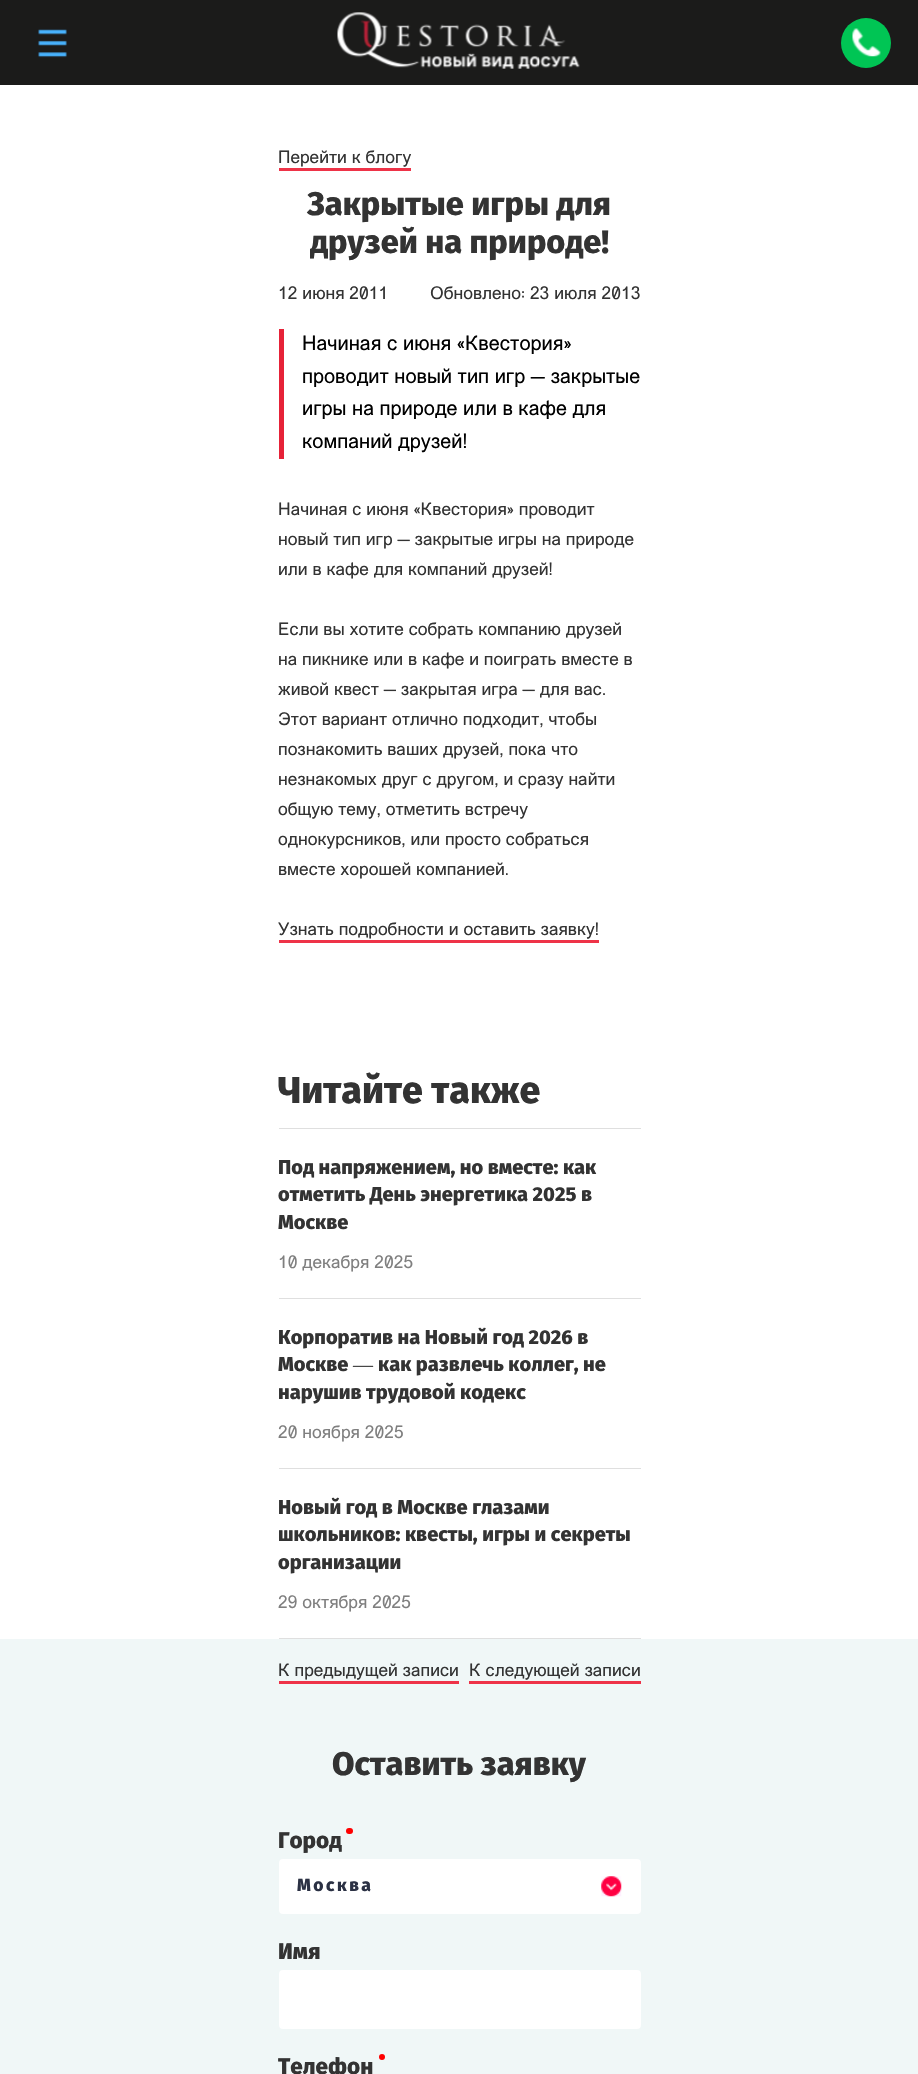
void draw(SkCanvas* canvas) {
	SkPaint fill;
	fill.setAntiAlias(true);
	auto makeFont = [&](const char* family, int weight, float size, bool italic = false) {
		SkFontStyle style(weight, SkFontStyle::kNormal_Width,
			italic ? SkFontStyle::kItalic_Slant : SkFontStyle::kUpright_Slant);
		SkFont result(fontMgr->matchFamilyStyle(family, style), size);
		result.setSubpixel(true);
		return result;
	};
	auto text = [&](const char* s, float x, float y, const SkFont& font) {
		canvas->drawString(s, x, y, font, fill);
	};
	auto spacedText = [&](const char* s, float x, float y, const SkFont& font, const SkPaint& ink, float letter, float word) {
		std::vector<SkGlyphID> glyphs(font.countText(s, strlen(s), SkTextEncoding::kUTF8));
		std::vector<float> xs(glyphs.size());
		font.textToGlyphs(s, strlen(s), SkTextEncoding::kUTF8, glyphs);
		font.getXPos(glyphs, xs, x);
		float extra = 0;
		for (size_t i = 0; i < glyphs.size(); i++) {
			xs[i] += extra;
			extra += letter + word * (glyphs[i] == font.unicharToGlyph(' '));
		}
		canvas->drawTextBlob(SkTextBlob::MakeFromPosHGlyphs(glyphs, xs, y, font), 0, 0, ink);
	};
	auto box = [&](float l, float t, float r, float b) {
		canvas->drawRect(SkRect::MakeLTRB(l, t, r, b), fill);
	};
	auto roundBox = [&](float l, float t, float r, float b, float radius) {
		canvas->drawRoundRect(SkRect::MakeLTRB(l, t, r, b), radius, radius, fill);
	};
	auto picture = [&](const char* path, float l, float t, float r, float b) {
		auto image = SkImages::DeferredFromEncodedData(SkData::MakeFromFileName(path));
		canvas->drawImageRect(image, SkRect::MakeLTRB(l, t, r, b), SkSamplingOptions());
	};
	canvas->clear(0xFFFFFFFF);
	fill.setColor(0xFF1B1B1A);
	box(0, 0, 918, 85);
	picture("image0.png", 38, 29, 67, 58);
	picture("image1.png", 337, 12, 580, 69);
	fill.setColor(0xFF00C554);
	canvas->drawCircle(866, 43, 25, fill);
	picture("image2.png", 852, 28, 881, 57);
	fill.setColor(0xFFEE3348);
	box(279, 168, 411, 171);
	fill.setColor(0xFFE62238);
	box(279, 329, 284, 459);
	fill.setColor(0xFFEE3348);
	box(279, 940, 599, 943);
	fill.setColor(0xFFDFDFDF);
	box(279, 1128, 641, 1129);
	box(279, 1298, 641, 1299);
	box(279, 1468, 641, 1469);
	box(279, 1638, 641, 1639);
	fill.setColor(0xFFF0F7F7);
	box(0, 1639, 918, 2074);
	fill.setColor(0xFFEE3348);
	box(279, 1681, 459, 1684);
	box(469, 1681, 641, 1684);
	fill.setColor(0xFFFF0000);
	roundBox(346, 1828, 353, 1834, 3);
	fill.setColor(0xFFFFFFFF);
	roundBox(279, 1859, 641, 1914, 4);
	picture("image3.png", 601, 1876, 622, 1897);
	roundBox(279, 1970, 641, 2029, 4);
	fill.setColor(0xFFFF0000);
	canvas->drawCircle(382, 2057, 3, fill);
	auto font1 = makeFont("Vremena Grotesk", 400, 17.5f);
	fill.setColor(0xFF333333);
	text("Перейти к блогу", 278, 163, font1);
	auto font2 = makeFont("Fira Sans", 800, 32.5f);
	text("Закрытые игры для", 307, 215, font2);
	text("друзей на природе!", 310, 253, font2);
	text("12 июня 2011", 278, 299, font1);
	text("Обновлено: 23 июля 2013", 430, 299, font1);
	auto font3 = makeFont("Vremena Grotesk", 400, 20);
	fill.setColor(0xFF000000);
	text("Начиная с июня «Квестория»", 302, 350, font3);
	text("проводит новый тип игр — закрытые", 302, 383, font3);
	text("игры на природе или в кафе для", 302, 415, font3);
	text("компаний друзей!", 302, 448, font3);
	fill.setColor(0xFF333333);
	text("Начиная с июня «Квестория» проводит", 278, 515, font1);
	text("новый тип игр — закрытые игры на природе", 278, 545, font1);
	text("или в кафе для компаний друзей!", 278, 575, font1);
	text("Если вы хотите собрать компанию друзей", 278, 635, font1);
	text("на пикнике или в кафе и поиграть вместе в", 278, 665, font1);
	text("живой квест — закрытая игра — для вас.", 278, 695, font1);
	text("Этот вариант отлично подходит, чтобы", 278, 725, font1);
	text("познакомить ваших друзей, пока что", 278, 755, font1);
	text("незнакомых друг с другом, и сразу найти", 278, 785, font1);
	text("общую тему, отметить встречу", 278, 815, font1);
	text("однокурсников, или просто собраться", 278, 845, font1);
	text("вместе хорошей компанией.", 278, 875, font1);
	text("Узнать подробности и оставить заявку!", 278, 935, font1);
	auto font4 = makeFont("Fira Sans", 800, 37.5f);
	text("Читайте также", 278, 1103, font4);
	auto font5 = makeFont("Fira Sans", 800, 20);
	text("Под напряжением, но вместе: как", 278, 1174, font5);
	text("отметить День энергетика 2025 в", 278, 1201, font5);
	text("Москве", 278, 1229, font5);
	fill.setColor(0xFF7F7F7F);
	text("10 декабря 2025", 278, 1268, font1);
	fill.setColor(0xFF333333);
	text("Корпоратив на Новый год 2026 в", 278, 1344, font5);
	text("Москве", 278, 1371, font5);
	auto font6 = makeFont("Liberation Serif", 400, 20);
	text("—", 353, 1371, font6);
	text("как развлечь коллег, не", 378, 1371, font5);
	text("нарушив трудовой кодекс", 278, 1399, font5);
	fill.setColor(0xFF7F7F7F);
	text("20 ноября 2025", 278, 1438, font1);
	fill.setColor(0xFF333333);
	text("Новый год в Москве глазами", 278, 1514, font5);
	text("школьников: квесты, игры и секреты", 278, 1541, font5);
	text("организации", 278, 1569, font5);
	fill.setColor(0xFF7F7F7F);
	text("29 октября 2025", 278, 1608, font1);
	fill.setColor(0xFF333333);
	text("К предыдущей записи", 278, 1676, font1);
	text("К следующей записи", 469, 1676, font1);
	text("Оставить заявку", 332, 1775, font2);
	auto font7 = makeFont("Fira Sans", 800, 22.5f);
	text("Город", 278, 1848, font7);
	auto font8 = makeFont("Fira Sans", 800, 17.5f);
	fill.setColor(0xFF2B3144);
	spacedText("Москва", 297, 1891, font8, fill, 2.5f, 0);
	fill.setColor(0xFF333333);
	text("Имя", 278, 1959, font7);
	text("Телефон", 278, 2074, font7);
}
